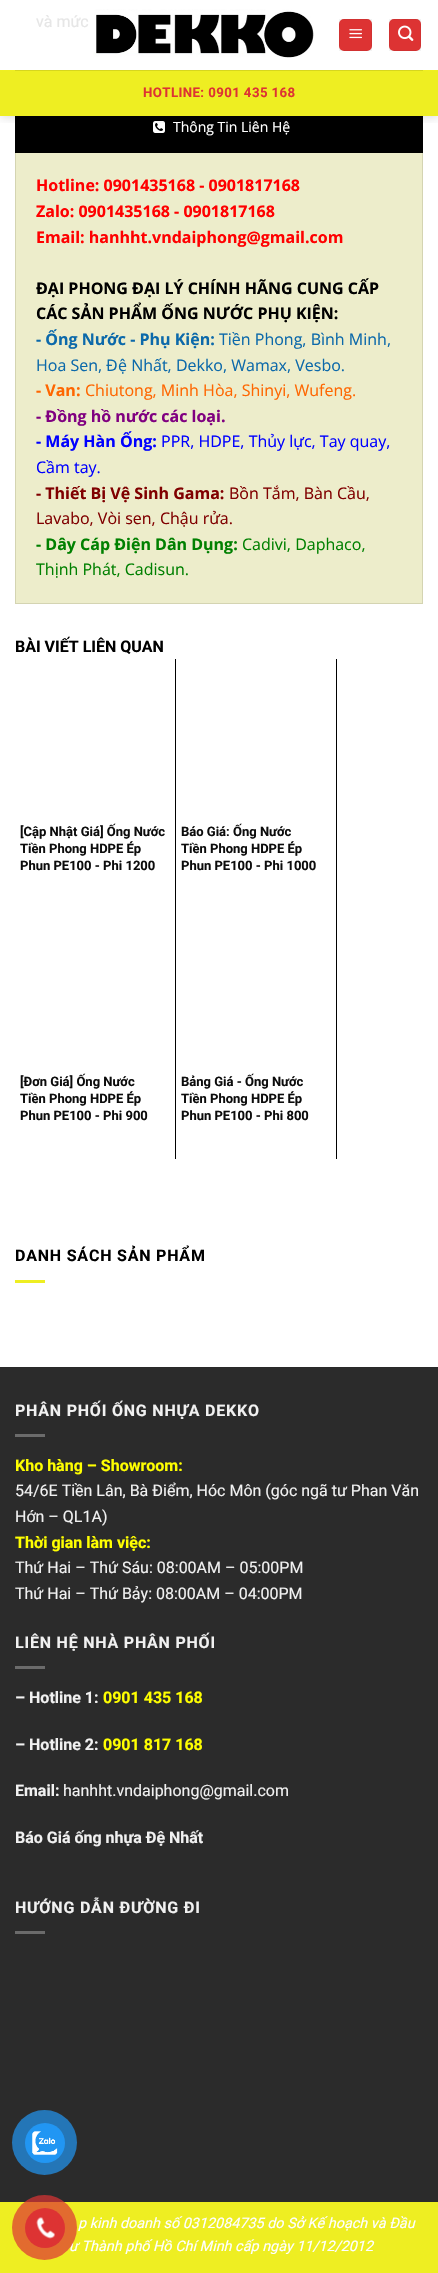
void draw(SkCanvas* canvas) {
	SkPaint fill;
	fill.setAntiAlias(true);
	auto makeFont = [&](const char* family, int weight, float size, bool italic = false) {
		SkFontStyle style(weight, SkFontStyle::kNormal_Width,
			italic ? SkFontStyle::kItalic_Slant : SkFontStyle::kUpright_Slant);
		SkFont result(fontMgr->matchFamilyStyle(family, style), size);
		result.setSubpixel(true);
		return result;
	};
	auto text = [&](const char* s, float x, float y, const SkFont& font) {
		canvas->drawString(s, x, y, font, fill);
	};
	auto spacedText = [&](const char* s, float x, float y, const SkFont& font, const SkPaint& ink, float letter, float word) {
		std::vector<SkGlyphID> glyphs(font.countText(s, strlen(s), SkTextEncoding::kUTF8));
		std::vector<float> xs(glyphs.size());
		font.textToGlyphs(s, strlen(s), SkTextEncoding::kUTF8, glyphs);
		font.getXPos(glyphs, xs, x);
		float extra = 0;
		for (size_t i = 0; i < glyphs.size(); i++) {
			xs[i] += extra;
			extra += letter + word * (glyphs[i] == font.unicharToGlyph(' '));
		}
		canvas->drawTextBlob(SkTextBlob::MakeFromPosHGlyphs(glyphs, xs, y, font), 0, 0, ink);
	};
	auto box = [&](float l, float t, float r, float b) {
		canvas->drawRect(SkRect::MakeLTRB(l, t, r, b), fill);
	};
	auto roundBox = [&](float l, float t, float r, float b, float radius) {
		canvas->drawRoundRect(SkRect::MakeLTRB(l, t, r, b), radius, radius, fill);
	};
	auto picture = [&](const char* path, float l, float t, float r, float b) {
		auto image = SkImages::DeferredFromEncodedData(SkData::MakeFromFileName(path));
		canvas->drawImageRect(image, SkRect::MakeLTRB(l, t, r, b), SkSamplingOptions());
	};
	canvas->clear(0xFFFFFFFF);
	fill.setColor(0xFFEDEDCB);
	canvas->drawRect(SkRect::MakeLTRB(15.5f, 152.5f, 422.5f, 603.5f), fill);
	fill.setStyle(SkPaint::kStroke_Style);
	fill.setStrokeWidth(1);
	fill.setColor(0xFFD4D4B2);
	canvas->drawRect(SkRect::MakeLTRB(15.5f, 152.5f, 422.5f, 603.5f), fill);
	fill.setStyle(SkPaint::kFill_Style);
	fill.setColor(0xFF000000);
	box(15, 116, 423, 153);
	picture("image0.png", 153, 121, 165, 133);
	box(175, 659, 176, 1159);
	box(336, 659, 337, 1159);
	fill.setColor(0xFFEEEE22);
	box(15, 1280, 45, 1283);
	canvas->save();
	canvas->clipRect(SkRect::MakeLTRB(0, 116, 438, 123));
	fill.setColor(0x26000000);
	fill.setMaskFilter(SkMaskFilter::MakeBlur(kNormal_SkBlurStyle, 5));
	canvas->drawRect(SkRect::MakeLTRB(1, 1, 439, 117), fill);
	fill.setMaskFilter(nullptr);
	canvas->restore();
	picture("image1.png", 93, 9, 314, 58);
	fill.setColor(0xFFDD3333);
	roundBox(339, 19, 372, 51, 5);
	fill.setStyle(SkPaint::kStroke_Style);
	fill.setColor(0x0D000000);
	canvas->drawRect(SkRect::MakeLTRB(339.5f, 19.5f, 371.5f, 50.5f), fill);
	picture("image2.png", 349, 29, 362, 39);
	fill.setStyle(SkPaint::kFill_Style);
	fill.setColor(0xFFDD3333);
	roundBox(389, 19, 421, 51, 5);
	fill.setStyle(SkPaint::kStroke_Style);
	fill.setColor(0x0D000000);
	canvas->drawRect(SkRect::MakeLTRB(389.5f, 19.5f, 420.5f, 50.5f), fill);
	picture("image3.png", 398, 25, 414, 41);
	fill.setStyle(SkPaint::kFill_Style);
	fill.setColor(0xFFEEEE22);
	box(0, 70, 438, 116);
	fill.setColor(0xFFD6D61F);
	box(15, 70, 423, 71);
	fill.setColor(0xFF2B2B2B);
	box(0, 1368, 438, 2202);
	fill.setColor(0xFF292929);
	box(0, 1367, 438, 1368);
	fill.setColor(0xFF6B6B6B);
	box(15, 1434, 45, 1437);
	box(15, 1666, 45, 1669);
	box(15, 1931, 45, 1934);
	fill.setColor(0xFFEEEE22);
	box(0, 2202, 438, 2273);
	fill.setColor(0xFF2476B7);
	canvas->drawCircle(44.5f, 2142.5f, 32.5f, fill);
	fill.setColor(0xFF2196F3);
	canvas->drawCircle(45, 2143, 20, fill);
	picture("image4.png", 32, 2131, 58, 2155);
	auto font1 = makeFont("Roboto", 400, 16);
	fill.setColor(0xFFE6E6E6);
	text("và mức", 36, 27, font1);
	auto font2 = makeFont("Open Sans", 400, 14);
	fill.setColor(0xFFFFFFFF);
	text("Thông Tin Liên Hệ", 173, 132, font2);
	auto font3 = makeFont("Open Sans", 700, 16);
	fill.setColor(0xFFFF0000);
	text("Hotline: 0901435168 - 0901817168", 36, 191, font3);
	text("Zalo: 0901435168 - 0901817168", 36, 217, font3);
	text("Email: hanhht.vndaiphong@gmail.com", 36, 243, font3);
	fill.setColor(0xFF000000);
	text("ĐẠI PHONG ĐẠI LÝ CHÍNH HÃNG CUNG CẤP", 36, 294, font3);
	text("CÁC SẢN PHẨM ỐNG NƯỚC PHỤ KIỆN:", 36, 319, font3);
	fill.setColor(0xFF0C69AA);
	text("- Ống Nước - Phụ Kiện:", 36, 345, font3);
	auto font4 = makeFont("Open Sans", 400, 16);
	text("Tiền Phong, Bình Minh,", 219, 345, font4);
	text("Hoa Sen,", 36, 371, font4);
	auto font5 = makeFont("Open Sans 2", 400, 16);
	text("Đ", 106, 371, font5);
	text("ệ Nhất, Dekko, Wamax, Vesbo.", 118, 371, font4);
	fill.setColor(0xFFFF6600);
	text("- Van:", 36, 396, font3);
	text("Chiutong, Minh Hòa, Shinyi, Wufeng.", 85, 396, font4);
	fill.setColor(0xFF800080);
	text("- Đồng hồ nước các loại.", 36, 422, font3);
	fill.setColor(0xFF0000FF);
	text("- Máy Hàn Ống:", 36, 447, font3);
	text("PPR, HDPE, Thủy lực, Tay quay,", 161, 447, font4);
	text("Cầm tay.", 36, 473, font4);
	fill.setColor(0xFF800000);
	text("- Thiết Bị Vệ Sinh Gama:", 36, 499, font3);
	text("Bồn Tắm, Bàn Cầu,", 229, 499, font4);
	text("Lavabo, Vòi sen, Chậu rửa.", 36, 524, font4);
	fill.setColor(0xFF008000);
	text("- Dây Cáp Điện Dân Dụng:", 36, 550, font3);
	text("Cadivi, Daphaco,", 242, 550, font4);
	text("Thịnh Phát, Cadisun.", 36, 575, font4);
	auto font6 = makeFont("Roboto", 700, 16);
	fill.setColor(0xFF000000);
	text("BÀI VIẾT LIÊN QUAN", 15, 652, font6);
	auto font7 = makeFont("Roboto", 700, 13);
	fill.setColor(0xFF0C0C0C);
	text("[Cập Nhật Giá] Ống Nước", 20, 836, font7);
	text("Tiền Phong HDPE Ép", 20, 853, font7);
	text("Phun PE100 - Phi 1200", 20, 870, font7);
	text("Báo Giá: Ống Nước", 181, 836, font7);
	text("Tiền Phong HDPE Ép", 181, 853, font7);
	text("Phun PE100 - Phi 1000", 181, 870, font7);
	text("[Đơn Giá] Ống Nước", 20, 1086, font7);
	text("Tiền Phong HDPE Ép", 20, 1103, font7);
	text("Phun PE100 - Phi 900", 20, 1120, font7);
	text("Bảng Giá - Ống Nước", 181, 1086, font7);
	text("Tiền Phong HDPE Ép", 181, 1103, font7);
	text("Phun PE100 - Phi 800", 181, 1120, font7);
	fill.setColor(0xFF000000);
	spacedText("DANH SÁCH SẢN PHẨM", 15, 1261, font6, fill, 0.8f, 0);
	auto font8 = makeFont("Roboto", 700, 13.25f);
	fill.setColor(0xFFDD3333);
	spacedText("HOTLINE: 0901 435 168", 143, 97, font8, fill, 0.4f, 0);
	fill.setColor(0xFFF1F1F1);
	spacedText("PHÂN PHỐI ỐNG NHỰA DEKKO", 15, 1416, font6, fill, 0.8f, 0);
	fill.setColor(0xFFFFFF00);
	text("Kho hàng – Showroom:", 15, 1471, font6);
	fill.setColor(0xFFF1F1F1);
	text("54/6E Tiền Lân, Bà Điểm, Hóc Môn (góc ngã tư Phan Văn", 15, 1496, font1);
	text("Hớn – QL1A)", 15, 1522, font1);
	fill.setColor(0xFFFFFF00);
	text("Thời gian làm việc:", 15, 1548, font6);
	fill.setColor(0xFFF1F1F1);
	text("Thứ Hai – Thứ Sáu: 08:00AM – 05:00PM", 15, 1573, font1);
	text("Thứ Hai – Thứ Bảy: 08:00AM – 04:00PM", 15, 1599, font1);
	spacedText("LIÊN HỆ NHÀ PHÂN PHỐI", 15, 1648, font6, fill, 0.8f, 0);
	text("– Hotline 1:", 15, 1703, font6);
	fill.setColor(0xFFFFFF00);
	text("0901 435 168", 103, 1703, font6);
	fill.setColor(0xFFF1F1F1);
	text("– Hotline 2:", 15, 1750, font6);
	fill.setColor(0xFFFFFF00);
	text("0901 817 168", 103, 1750, font6);
	fill.setColor(0xFFF1F1F1);
	text("Email:", 15, 1796, font6);
	text("hanhht.vndaiphong@gmail.com", 63, 1796, font1);
	text("Báo Giá ống nhựa Đệ Nhất", 15, 1843, font6);
	spacedText("HƯỚNG DẪN ĐƯỜNG ĐI", 15, 1913, font6, fill, 0.8f, 0);
	auto font9 = makeFont("Roboto", 400, 14.4f, true);
	fill.setColor(0xFFFFFFFF);
	text("p kinh doanh số 0312084735 do Sở Kế hoạch và Đầu", 78, 2228, font9);
	text("ư Thành phố Hồ Chí Minh cấp ngày 11/12/2012", 69, 2251, font9);
	fill.setColor(0xB3DD3333);
	canvas->drawCircle(44.5f, 2227.5f, 32.5f, fill);
	fill.setColor(0xFFDD3333);
	canvas->drawCircle(45, 2228, 20, fill);
	picture("image5.png", 36, 2217, 55, 2239);
}
